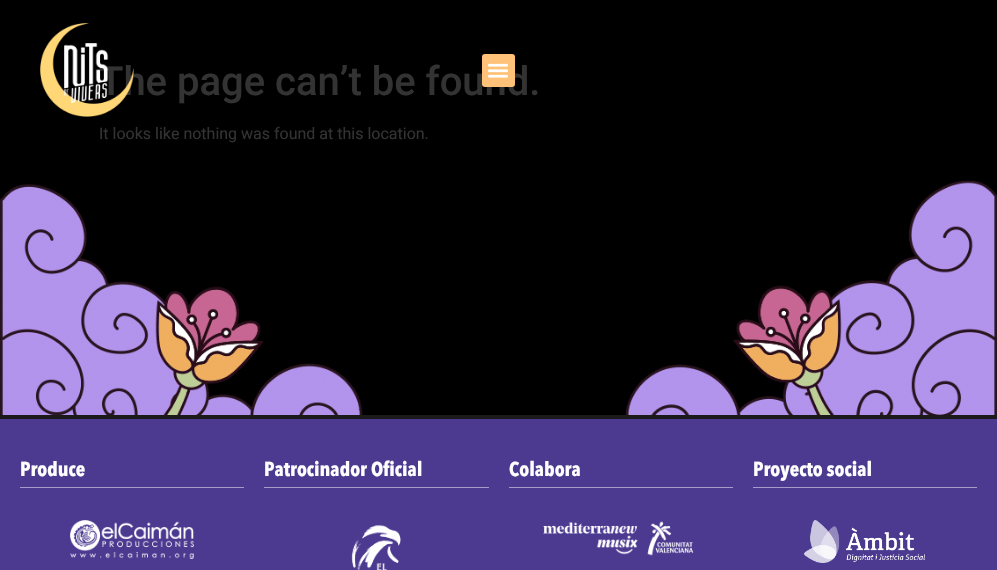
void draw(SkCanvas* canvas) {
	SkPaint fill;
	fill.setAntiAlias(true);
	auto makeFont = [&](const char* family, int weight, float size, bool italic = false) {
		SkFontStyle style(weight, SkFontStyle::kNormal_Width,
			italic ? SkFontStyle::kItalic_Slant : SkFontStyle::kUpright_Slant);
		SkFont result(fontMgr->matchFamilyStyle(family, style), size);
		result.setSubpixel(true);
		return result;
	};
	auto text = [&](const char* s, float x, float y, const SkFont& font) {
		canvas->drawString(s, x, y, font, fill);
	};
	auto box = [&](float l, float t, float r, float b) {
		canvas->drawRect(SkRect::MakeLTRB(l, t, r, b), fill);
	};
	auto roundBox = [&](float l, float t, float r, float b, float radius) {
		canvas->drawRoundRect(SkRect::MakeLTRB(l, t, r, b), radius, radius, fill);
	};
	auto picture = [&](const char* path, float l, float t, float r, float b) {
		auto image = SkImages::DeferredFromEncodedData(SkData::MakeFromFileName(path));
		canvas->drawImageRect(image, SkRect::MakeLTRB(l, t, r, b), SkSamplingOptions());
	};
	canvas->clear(0xFF000000);
	picture("image2.png", 0, 180, 997, 415);
	fill.setColor(0xFF4C3990);
	box(0, 419, 997, 570);
	fill.setColor(0xFF1B1919);
	box(0, 415, 997, 419);
	fill.setColor(0xFFA69CC8);
	box(20, 487, 244, 488);
	picture("image3.png", 70, 520, 194, 559);
	box(264, 487, 489, 488);
	picture("image4.png", 351, 525, 401, 570);
	box(509, 487, 733, 488);
	picture("image5.png", 543, 521, 694, 556);
	box(753, 487, 977, 488);
	picture("image6.png", 804, 520, 925, 563);
	auto font1 = makeFont("Roboto", 500, 40);
	fill.setColor(0xFF333333);
	text("The page can’t be found.", 99, 95, font1);
	picture("image0.png", 40, 23, 134, 117);
	fill.setColor(0xFFFFC278);
	roundBox(482, 54, 515, 87, 3);
	picture("image1.png", 488, 63, 508, 78);
	auto font2 = makeFont("Roboto", 400, 16);
	fill.setColor(0xFF333333);
	text("It looks like nothing was found at this location.", 99, 139, font2);
	auto font3 = makeFont("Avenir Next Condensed", 700, 20);
	fill.setColor(0xFFFFFFFF);
	text("Produce", 20, 476, font3);
	text("Patrocinador Oficial", 264, 476, font3);
	text("Colabora", 509, 476, font3);
	text("Proyecto social", 753, 476, font3);
}
